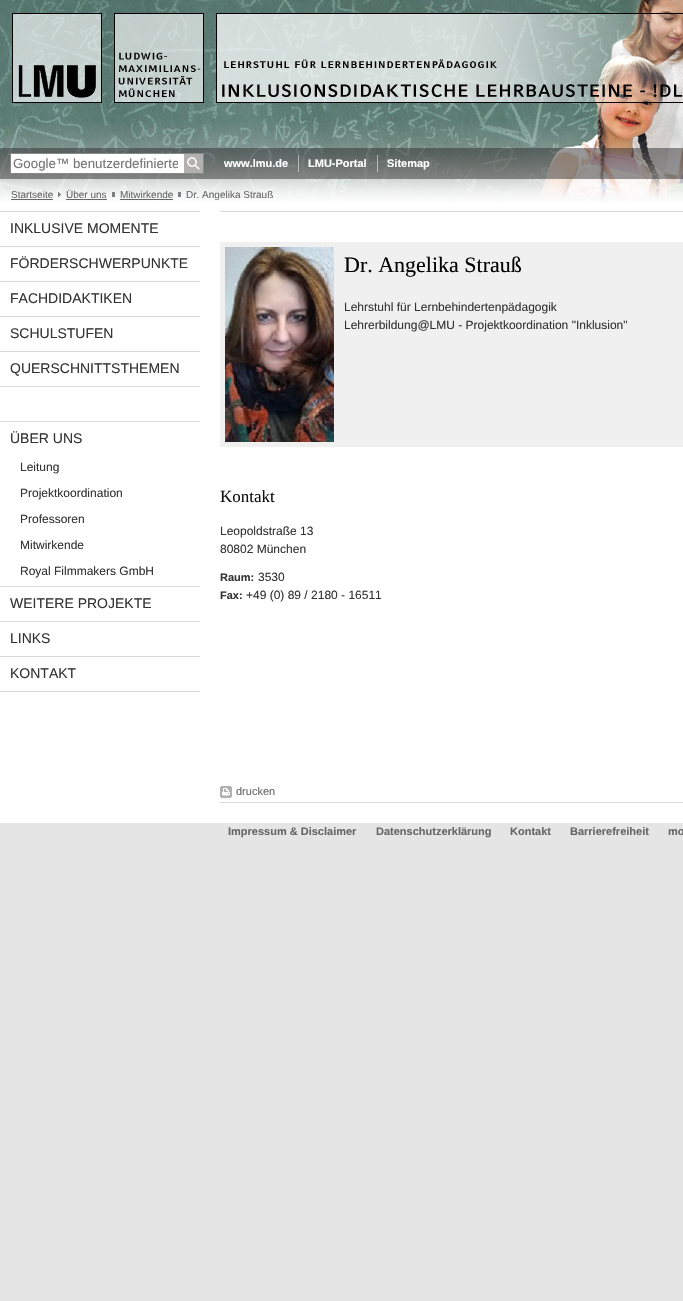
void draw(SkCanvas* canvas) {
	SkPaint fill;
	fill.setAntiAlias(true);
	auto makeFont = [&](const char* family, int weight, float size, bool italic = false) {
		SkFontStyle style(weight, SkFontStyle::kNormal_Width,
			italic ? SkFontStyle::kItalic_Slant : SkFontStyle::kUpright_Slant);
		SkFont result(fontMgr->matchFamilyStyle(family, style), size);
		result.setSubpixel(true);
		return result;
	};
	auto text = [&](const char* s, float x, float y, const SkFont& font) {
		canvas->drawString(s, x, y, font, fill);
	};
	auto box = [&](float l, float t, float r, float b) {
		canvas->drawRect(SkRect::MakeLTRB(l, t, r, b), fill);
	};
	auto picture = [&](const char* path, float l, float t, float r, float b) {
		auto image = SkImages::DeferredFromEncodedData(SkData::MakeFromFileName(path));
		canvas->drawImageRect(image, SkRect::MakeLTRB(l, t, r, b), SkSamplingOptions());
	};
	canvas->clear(0xFFE5E5E5);
	fill.setColor(0xFFFFFFFF);
	box(0, 202, 683, 823);
	picture("image0.png", 0, 0, 683, 148);
	picture("image1.png", 0, 148, 683, 179);
	box(11, 154, 184, 173);
	fill.setStyle(SkPaint::kStroke_Style);
	fill.setStrokeWidth(1);
	fill.setColor(0xFF888888);
	canvas->drawRect(SkRect::MakeLTRB(10.5f, 153.5f, 203.5f, 173.5f), fill);
	picture("image2.png", 184, 154, 203, 173);
	fill.setStyle(SkPaint::kFill_Style);
	fill.setColor(0x80FFFFFF);
	box(298, 155, 299, 172);
	box(377, 155, 378, 172);
	picture("image3.png", 0, 179, 683, 202);
	fill.setColor(0xFF666666);
	box(11, 199, 53, 200);
	picture("image4.png", 58, 192, 62, 197);
	box(66, 199, 107, 200);
	fill.setColor(0xFF7F7F7F);
	box(112, 192, 115, 197);
	fill.setColor(0xFF666666);
	box(120, 199, 173, 200);
	fill.setColor(0xFF7F7F7F);
	box(178, 192, 181, 197);
	fill.setColor(0xFFD8D8D8);
	box(0, 211, 200, 212);
	box(0, 246, 200, 247);
	box(0, 281, 200, 282);
	box(0, 316, 200, 317);
	box(0, 351, 200, 352);
	box(0, 386, 200, 387);
	box(0, 421, 200, 422);
	box(0, 586, 200, 587);
	box(0, 621, 200, 622);
	box(0, 656, 200, 657);
	box(0, 691, 200, 692);
	box(220, 211, 683, 212);
	fill.setColor(0xFFF0F0F0);
	box(220, 242, 683, 447);
	picture("image5.png", 225, 247, 334, 442);
	fill.setColor(0xFFD8D8D8);
	box(220, 802, 683, 803);
	picture("image6.png", 220, 786, 232, 798);
	canvas->save();
	canvas->clipRect(SkRect::MakeLTRB(13, 156, 178, 171));
	auto font1 = makeFont("Liberation Sans", 400, 13.3f);
	fill.setColor(0xFF757575);
	text("Google™ benutzerdefinierte", 13, 168, font1);
	canvas->restore();
	auto font2 = makeFont("Liberation Sans", 700, 11);
	fill.setColor(0xFFFFFFFF);
	text("www.lmu.de", 224, 167, font2);
	text("LMU-Portal", 308, 167, font2);
	text("Sitemap", 387, 167, font2);
	auto font3 = makeFont("Liberation Sans", 400, 10);
	fill.setColor(0xFF666666);
	text("Startseite", 11, 198, font3);
	text("Über uns", 66, 198, font3);
	text("Mitwirkende", 120, 198, font3);
	text("Dr. Angelika Strauß", 186, 198, font3);
	auto font4 = makeFont("Liberation Sans", 400, 14);
	fill.setColor(0xFF333333);
	text("INKLUSIVE MOMENTE", 10, 233, font4);
	text("FÖRDERSCHWERPUNKTE", 10, 268, font4);
	text("FACHDIDAKTIKEN", 10, 303, font4);
	text("SCHULSTUFEN", 10, 338, font4);
	text("QUERSCHNITTSTHEMEN", 10, 373, font4);
	text("ÜBER UNS", 10, 443, font4);
	auto font5 = makeFont("Liberation Sans", 400, 12);
	text("Leitung", 20, 471, font5);
	text("Projektkoordination", 20, 497, font5);
	text("Professoren", 20, 523, font5);
	text("Mitwirkende", 20, 549, font5);
	text("Royal Filmmakers GmbH", 20, 575, font5);
	text("WEITERE PROJEKTE", 10, 608, font4);
	text("LINKS", 10, 643, font4);
	text("KONTAKT", 10, 678, font4);
	auto font6 = makeFont("Liberation Serif", 400, 22);
	fill.setColor(0xFF000000);
	text("Dr. Angelika Strauß", 344, 272, font6);
	fill.setColor(0xFF333333);
	text("Lehrstuhl für Lernbehindertenpädagogik", 344, 311, font5);
	text("Lehrerbildung@LMU - Projektkoordination \"Inklusion\"", 344, 329, font5);
	auto font7 = makeFont("Liberation Serif", 400, 17);
	fill.setColor(0xFF111111);
	text("Kontakt", 220, 502, font7);
	fill.setColor(0xFF333333);
	text("Leopoldstraße 13", 220, 535, font5);
	text("80802 München", 220, 553, font5);
	text("Raum:", 220, 581, font2);
	text("3530", 258, 581, font5);
	text("Fax:", 220, 599, font2);
	text("+49 (0) 89 / 2180 - 16511", 246, 599, font5);
	auto font8 = makeFont("Liberation Sans", 400, 11);
	fill.setColor(0xFF666666);
	text("drucken", 236, 795, font8);
	text("Impressum & Disclaimer", 228, 835, font2);
	text("Datenschutzerklärung", 376, 835, font2);
	text("Kontakt", 510, 835, font2);
	text("Barrierefreiheit", 570, 835, font2);
	text("mo", 668, 835, font2);
}
